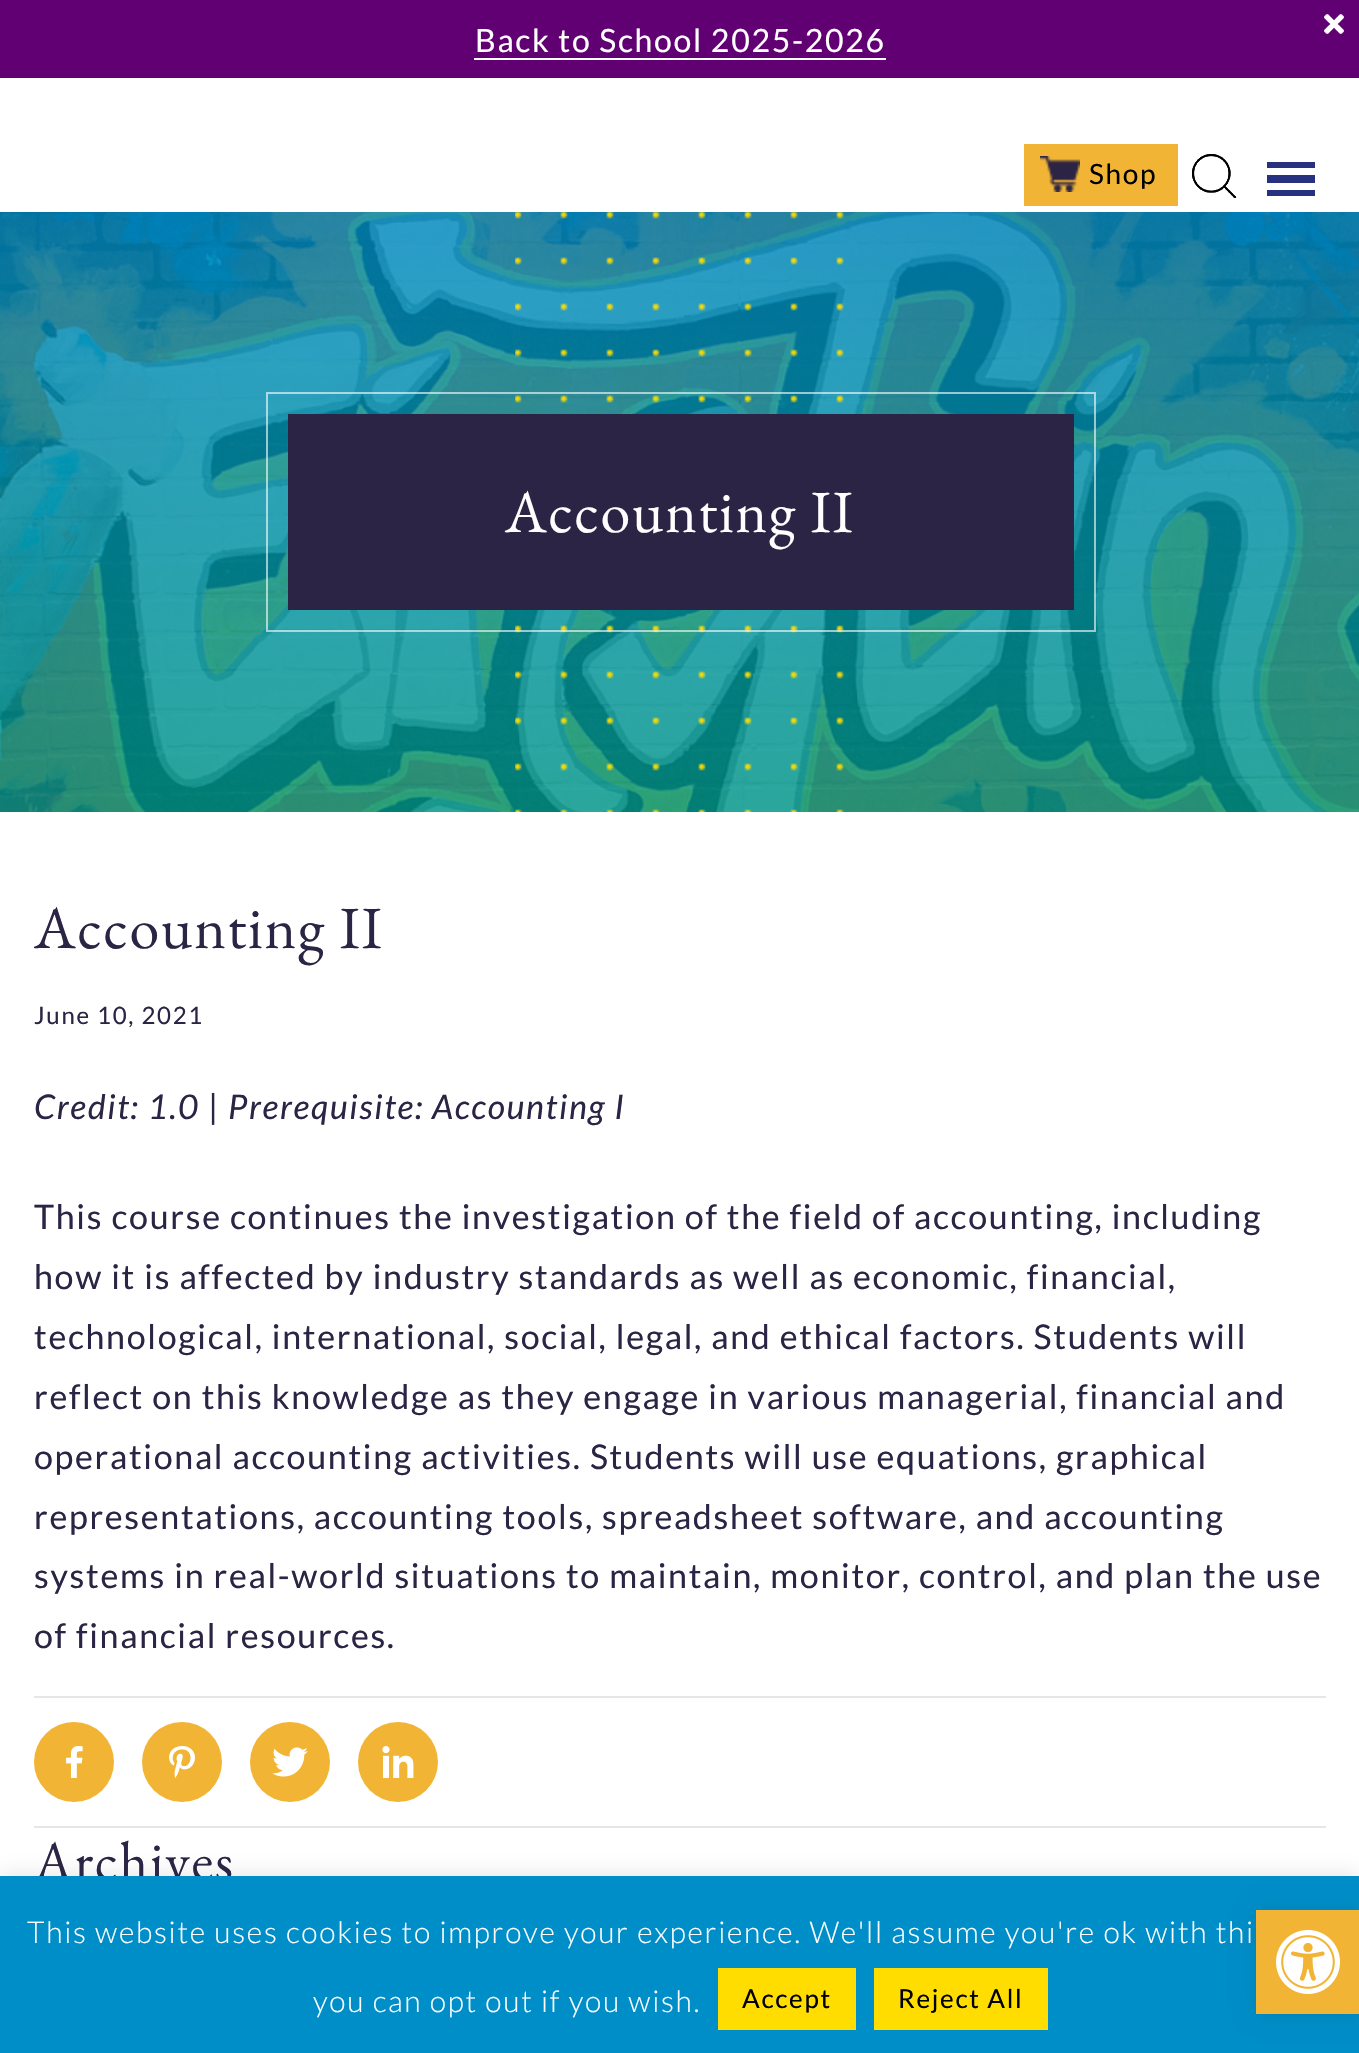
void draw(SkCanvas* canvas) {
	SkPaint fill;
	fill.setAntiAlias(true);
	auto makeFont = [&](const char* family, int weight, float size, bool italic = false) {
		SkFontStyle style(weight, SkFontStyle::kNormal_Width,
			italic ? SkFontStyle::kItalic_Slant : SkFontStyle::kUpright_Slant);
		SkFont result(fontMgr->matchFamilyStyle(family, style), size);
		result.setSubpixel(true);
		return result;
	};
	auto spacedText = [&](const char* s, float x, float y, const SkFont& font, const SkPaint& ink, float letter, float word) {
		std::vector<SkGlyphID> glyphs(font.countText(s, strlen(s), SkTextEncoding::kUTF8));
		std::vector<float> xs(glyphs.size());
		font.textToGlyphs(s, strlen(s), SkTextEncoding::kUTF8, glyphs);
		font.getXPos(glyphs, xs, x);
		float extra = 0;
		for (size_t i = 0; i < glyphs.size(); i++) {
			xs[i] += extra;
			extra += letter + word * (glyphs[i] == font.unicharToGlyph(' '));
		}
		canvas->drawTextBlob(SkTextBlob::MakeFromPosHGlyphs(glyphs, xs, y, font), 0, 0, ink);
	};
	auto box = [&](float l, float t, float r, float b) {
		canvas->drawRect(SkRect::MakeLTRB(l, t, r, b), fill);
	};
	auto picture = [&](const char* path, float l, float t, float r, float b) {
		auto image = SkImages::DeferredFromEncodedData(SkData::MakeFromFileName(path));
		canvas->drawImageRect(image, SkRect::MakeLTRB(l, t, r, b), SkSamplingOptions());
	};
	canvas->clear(0xFFFFFFFF);
	fill.setColor(0xFF610073);
	box(0, 0, 1359, 78);
	picture("image0.png", 1324, 14, 1344, 34);
	fill.setColor(0xFFFFFFFF);
	box(474, 58, 886, 60);
	fill.setColor(0xFFF2B434);
	box(1024, 144, 1178, 206);
	picture("image1.png", 1040, 156, 1080, 192);
	picture("image2.png", 1192, 154, 1236, 198);
	fill.setColor(0xFF26327F);
	canvas->drawPath(SkPathBuilder().moveTo(1267, 196).lineTo(1315, 196).lineTo(1315, 190).lineTo(1267, 190).close().moveTo(1267, 162).lineTo(1267, 168).lineTo(1315, 168).lineTo(1315, 162).close().moveTo(1267, 183).lineTo(1315, 183).lineTo(1315, 175).lineTo(1267, 175).close().detach(), fill);
	picture("image3.png", 0, 212, 1359, 812);
	picture("image4.png", 515, 212, 844, 812);
	fill.setStyle(SkPaint::kStroke_Style);
	fill.setStrokeWidth(2);
	fill.setColor(0x99FFFFFF);
	canvas->drawRect(SkRect::MakeLTRB(267, 393, 1095, 631), fill);
	fill.setStyle(SkPaint::kFill_Style);
	fill.setColor(0xFF2B2444);
	box(288, 414, 1074, 610);
	fill.setColor(0xFFE6E6E6);
	box(34, 1696, 1326, 1698);
	box(34, 1826, 1326, 1828);
	fill.setColor(0xFFF2B434);
	canvas->drawCircle(74, 1762, 40, fill);
	picture("image5.png", 66, 1746, 83, 1778);
	canvas->drawCircle(182, 1762, 40, fill);
	picture("image6.png", 169, 1746, 195, 1778);
	canvas->drawCircle(290, 1762, 40, fill);
	picture("image7.png", 272, 1747, 308, 1777);
	canvas->drawCircle(398, 1762, 40, fill);
	picture("image8.png", 382, 1746, 414, 1778);
	fill.setColor(0x4DACABAB);
	fill.setMaskFilter(SkMaskFilter::MakeBlur(kNormal_SkBlurStyle, 10));
	canvas->drawRect(SkRect::MakeLTRB(0, 1874, 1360, 2052), fill);
	fill.setMaskFilter(nullptr);
	auto font1 = makeFont("Lato", 400, 32);
	fill.setColor(0xFFFFFFFF);
	spacedText("Back to School 2025-2026", 475, 52, font1, fill, 1.7f, 0);
	auto font2 = makeFont("Lato", 400, 28);
	fill.setColor(0xFF000000);
	spacedText("Shop", 1089, 184, font2, fill, 1.7f, 0);
	auto font3 = makeFont("EB Garamond", 400, 60);
	fill.setColor(0xFFFFFFFF);
	spacedText("Accounting II", 505, 532, font3, fill, 1.7f, 0);
	fill.setColor(0xFF2B2444);
	spacedText("Accounting II", 34, 948, font3, fill, 1.7f, 0);
	auto font4 = makeFont("Lato", 400, 24);
	spacedText("June 10, 2021", 34, 1024, font4, fill, 1.7f, 0);
	auto font5 = makeFont("Lato", 400, 34, true);
	spacedText("Credit: 1.0", 34, 1119, font5, fill, 1.7f, 0);
	auto font6 = makeFont("Lato", 400, 34);
	spacedText("|", 208, 1119, font6, fill, 1.7f, 0);
	spacedText("Prerequisite: Accounting I", 228, 1119, font5, fill, 1.7f, 0);
	spacedText("This course continues the investigation of the field of accounting, including", 34, 1229, font6, fill, 1.7f, 0);
	spacedText("how it is affected by industry standards as well as economic, financial,", 34, 1289, font6, fill, 1.7f, 0);
	spacedText("technological, international, social, legal, and ethical factors. Students will", 34, 1349, font6, fill, 1.7f, 0);
	spacedText("reflect on this knowledge as they engage in various managerial, financial and", 34, 1409, font6, fill, 1.7f, 0);
	spacedText("operational accounting activities. Students will use equations, graphical", 34, 1469, font6, fill, 1.7f, 0);
	spacedText("representations, accounting tools, spreadsheet software, and accounting", 34, 1529, font6, fill, 1.7f, 0);
	spacedText("systems in real-world situations to maintain, monitor, control, and plan the use", 34, 1588, font6, fill, 1.7f, 0);
	spacedText("of financial resources.", 34, 1648, font6, fill, 1.7f, 0);
	auto font7 = makeFont("EB Garamond", 400, 56);
	spacedText("Archives", 34, 1880, font7, fill, 1.7f, 0);
	fill.setColor(0xFF008EC8);
	box(0, 1876, 1359, 2053);
	auto font8 = makeFont("Lato", 300, 30);
	fill.setColor(0xFFFFFFFF);
	spacedText("This website uses cookies to improve your experience. We'll assume you're ok with thi", 27, 1943, font8, fill, 1.7f, 0);
	spacedText("you can opt out if you wish.", 313, 2012, font8, fill, 1.7f, 0);
	fill.setColor(0xFFFFDD00);
	box(718, 1968, 856, 2030);
	auto font9 = makeFont("Lato", 400, 26);
	fill.setColor(0xFF000000);
	spacedText("Accept", 742, 2008, font9, fill, 1.7f, 0);
	fill.setColor(0xFFFFDD00);
	box(874, 1968, 1048, 2030);
	fill.setColor(0xFF000000);
	spacedText("Reject All", 898, 2008, font9, fill, 1.7f, 0);
	fill.setColor(0x1A000000);
	fill.setMaskFilter(SkMaskFilter::MakeBlur(kNormal_SkBlurStyle, 10));
	canvas->drawRect(SkRect::MakeLTRB(1256, 1910, 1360, 2014), fill);
	fill.setMaskFilter(nullptr);
	fill.setColor(0xFFF2B434);
	box(1256, 1910, 1359, 2014);
	picture("image9.png", 1276, 1930, 1340, 1994);
}
